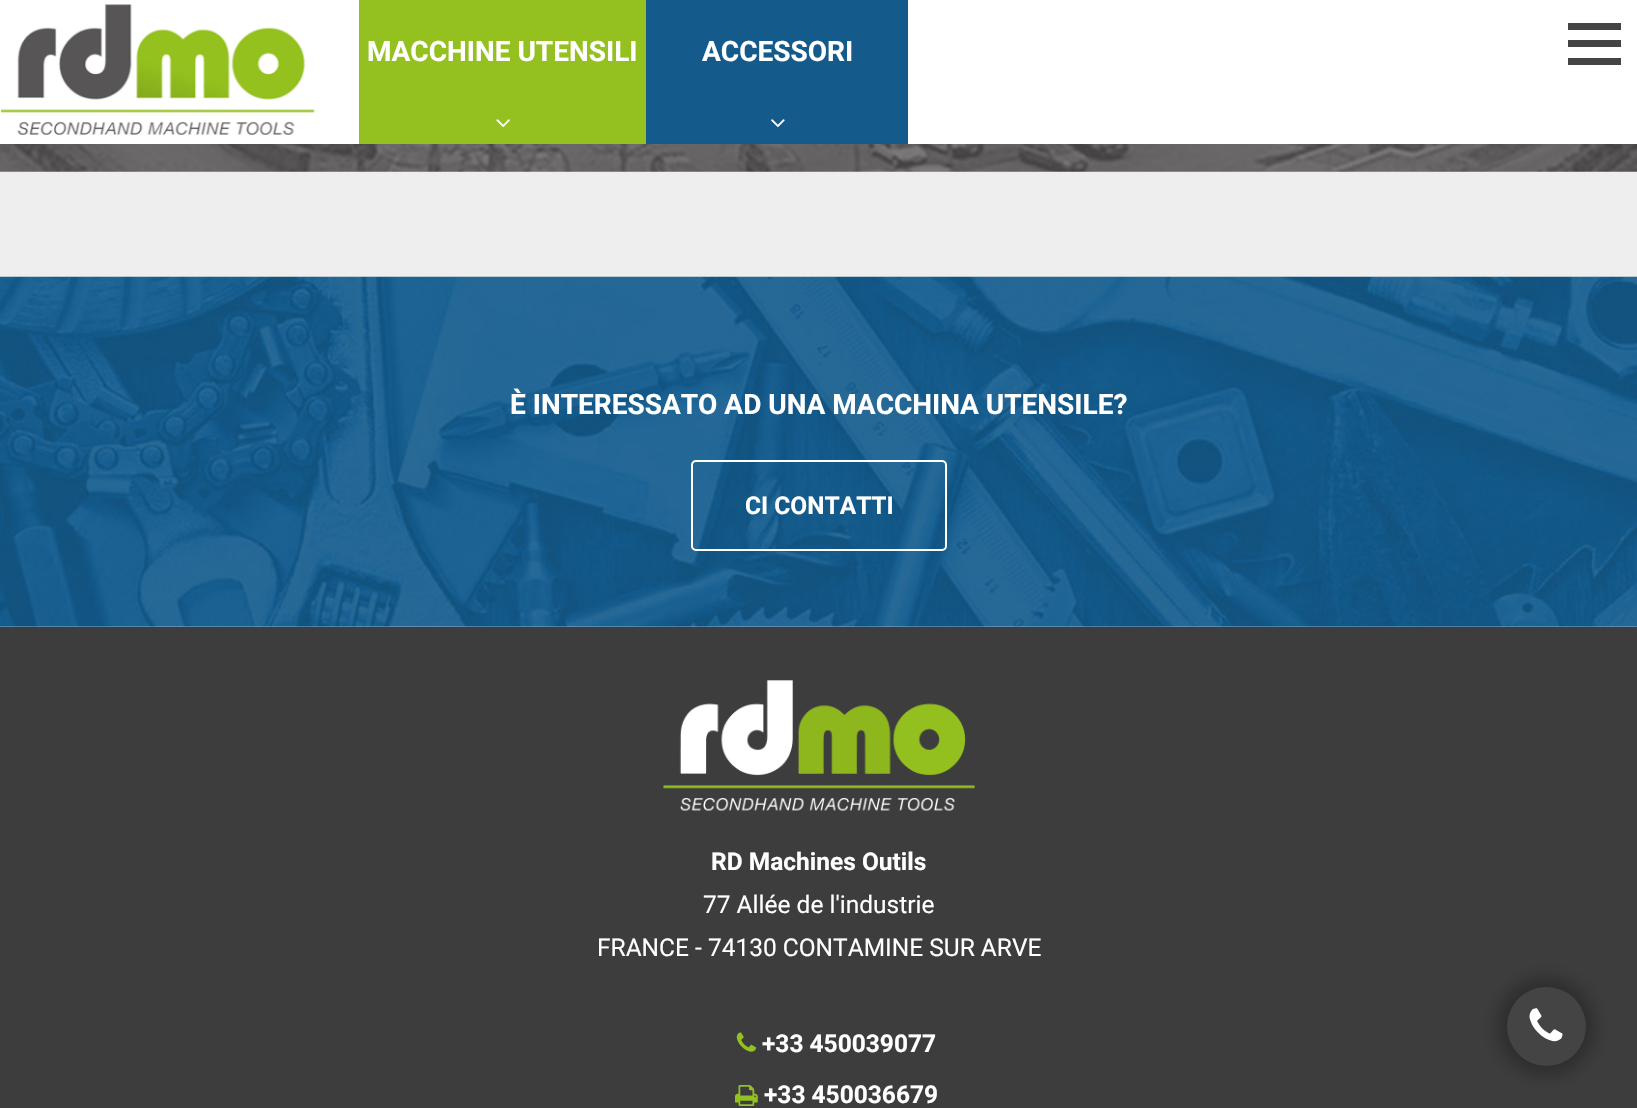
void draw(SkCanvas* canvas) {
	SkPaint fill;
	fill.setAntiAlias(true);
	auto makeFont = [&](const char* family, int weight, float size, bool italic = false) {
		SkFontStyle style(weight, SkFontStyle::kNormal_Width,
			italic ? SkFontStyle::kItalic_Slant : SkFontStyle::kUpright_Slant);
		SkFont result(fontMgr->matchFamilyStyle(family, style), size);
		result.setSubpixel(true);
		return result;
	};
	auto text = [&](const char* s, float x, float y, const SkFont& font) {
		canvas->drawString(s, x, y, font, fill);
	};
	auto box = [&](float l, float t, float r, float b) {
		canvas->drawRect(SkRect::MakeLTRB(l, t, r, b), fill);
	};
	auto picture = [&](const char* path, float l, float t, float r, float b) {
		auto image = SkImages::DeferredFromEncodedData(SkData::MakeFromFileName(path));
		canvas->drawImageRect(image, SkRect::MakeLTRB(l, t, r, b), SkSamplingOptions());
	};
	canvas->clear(0xFFFFFFFF);
	picture("image0.png", 1, 4, 315, 135);
	fill.setColor(0xFF94C11F);
	box(359, 0, 646, 144);
	picture("image1.png", 496, 119, 510, 128);
	fill.setColor(0xFF145B8C);
	box(646, 0, 908, 144);
	picture("image2.png", 771, 119, 785, 128);
	fill.setColor(0xFF444444);
	box(1568, 40, 1621, 47);
	box(1568, 23, 1621, 30);
	box(1568, 58, 1621, 65);
	fill.setColor(0xFFEEEEEE);
	box(0, 171, 1637, 277);
	picture("image3.png", 0, 144, 1637, 172);
	picture("image4.png", 0, 276, 1637, 627);
	fill.setStyle(SkPaint::kStroke_Style);
	fill.setStrokeWidth(2);
	fill.setColor(0xFFFFFFFF);
	canvas->drawRoundRect(SkRect::MakeLTRB(692, 461, 946, 550), 4, 4, fill);
	fill.setStyle(SkPaint::kFill_Style);
	fill.setColor(0xFF3D3D3D);
	box(0, 627, 1637, 1108);
	picture("image5.png", 663, 680, 975, 811);
	picture("image6.png", 736, 1032, 756, 1052);
	picture("image7.png", 735, 1085, 758, 1106);
	fill.setColor(0x47000000);
	fill.setMaskFilter(SkMaskFilter::MakeBlur(kNormal_SkBlurStyle, 9));
	canvas->drawRoundRect(SkRect::MakeLTRB(1498, 978, 1594, 1075), 48, 48, fill);
	fill.setMaskFilter(nullptr);
	fill.setColor(0xFF444444);
	canvas->drawCircle(1546.5f, 1026.5f, 39.5f, fill);
	picture("image8.png", 1529, 1008, 1563, 1042);
	auto font1 = makeFont("Roboto", 700, 28);
	fill.setColor(0xFFFFFFFF);
	text("MACCHINE UTENSILI", 367, 61, font1);
	text("ACCESSORI", 702, 61, font1);
	text("È INTERESSATO AD UNA MACCHINA UTENSILE?", 510, 414, font1);
	auto font2 = makeFont("Roboto", 700, 24.5f);
	text("CI CONTATTI", 745, 514, font2);
	text("RD Machines Outils", 711, 870, font2);
	auto font3 = makeFont("Roboto", 400, 24.5f);
	text("77 Allée de l'industrie", 703, 913, font3);
	text("FRANCE - 74130 CONTAMINE SUR ARVE", 597, 956, font3);
	text("+33 450039077", 762, 1052, font2);
	text("+33 450036679", 764, 1103, font2);
}
